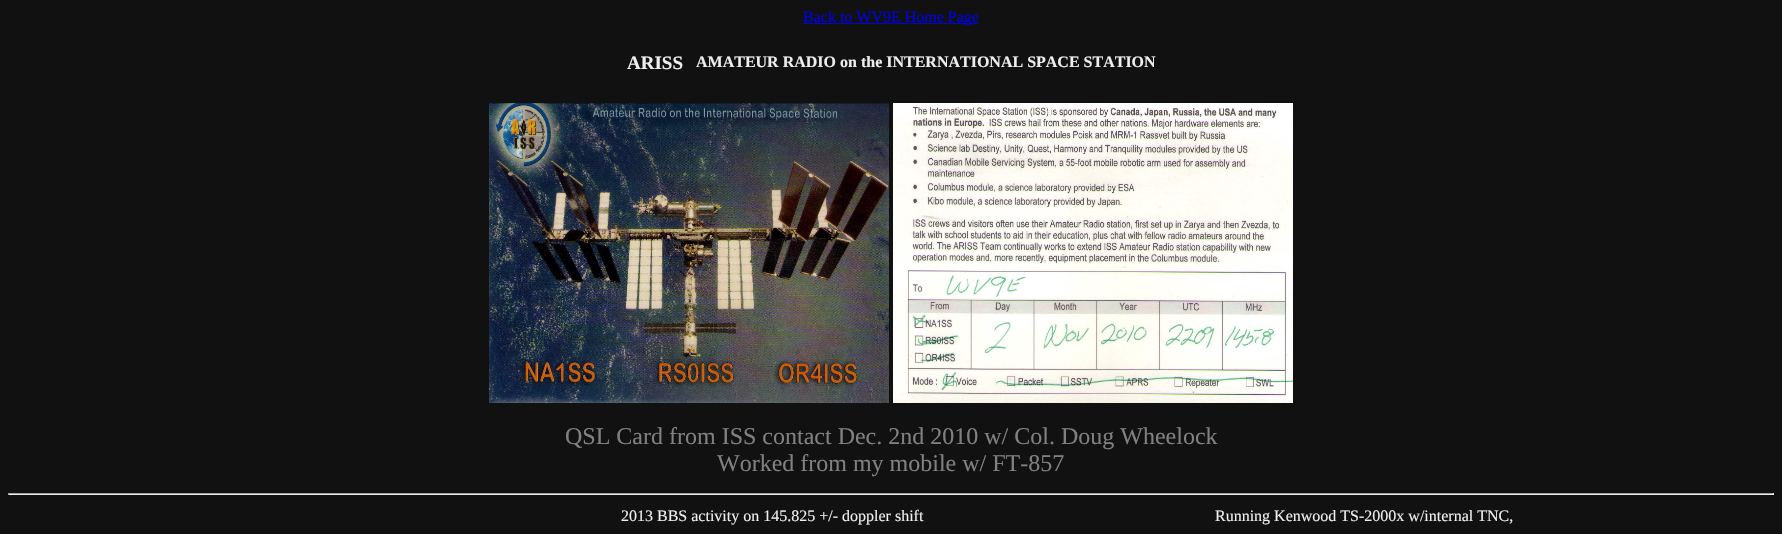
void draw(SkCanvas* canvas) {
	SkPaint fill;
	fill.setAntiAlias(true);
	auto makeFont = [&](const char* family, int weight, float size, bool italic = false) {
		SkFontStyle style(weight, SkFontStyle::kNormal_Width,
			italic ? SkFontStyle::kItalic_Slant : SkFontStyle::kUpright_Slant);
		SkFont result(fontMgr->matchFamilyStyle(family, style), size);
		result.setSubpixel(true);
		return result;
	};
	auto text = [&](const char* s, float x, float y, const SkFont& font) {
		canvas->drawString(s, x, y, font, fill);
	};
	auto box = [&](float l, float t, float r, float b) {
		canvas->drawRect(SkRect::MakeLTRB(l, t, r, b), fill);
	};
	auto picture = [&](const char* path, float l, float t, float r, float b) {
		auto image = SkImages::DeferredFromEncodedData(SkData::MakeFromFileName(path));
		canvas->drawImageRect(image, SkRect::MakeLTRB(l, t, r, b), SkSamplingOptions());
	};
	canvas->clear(0xFF111111);
	fill.setColor(0xFF0000EE);
	box(803, 23, 979, 24);
	picture("image0.png", 489, 103, 889, 403);
	picture("image1.png", 893, 103, 1293, 403);
	fill.setColor(0xFF9F9F9F);
	box(8, 493, 1774, 494);
	fill.setColor(0xFFEEEEEE);
	box(1773, 493, 1774, 495);
	box(8, 494, 1774, 495);
	fill.setColor(0xFF9F9F9F);
	box(8, 493, 9, 495);
	auto font1 = makeFont("Liberation Serif", 400, 16);
	fill.setColor(0xFF0000EE);
	text("Back to WV9E Home Page", 803, 22, font1);
	auto font2 = makeFont("Liberation Serif", 700, 19);
	fill.setColor(0xFFEEEEEE);
	text("ARISS", 627, 69, font2);
	auto font3 = makeFont("Liberation Serif", 700, 16);
	text("AMATEUR RADIO on the INTERNATIONAL SPACE STATION", 696, 67, font3);
	auto font4 = makeFont("Liberation Serif", 400, 24);
	fill.setColor(0xFF808080);
	text("QSL Card from ISS contact Dec. 2nd 2010 w/ Col. Doug Wheelock", 565, 444, font4);
	text("Worked from my mobile w/ FT-857", 717, 471, font4);
	fill.setColor(0xFFEEEEEE);
	text("2013 BBS activity on 145.825 +/- doppler shift", 621, 521, font1);
	text("Running Kenwood TS-2000x w/internal TNC,", 1215, 521, font1);
}
